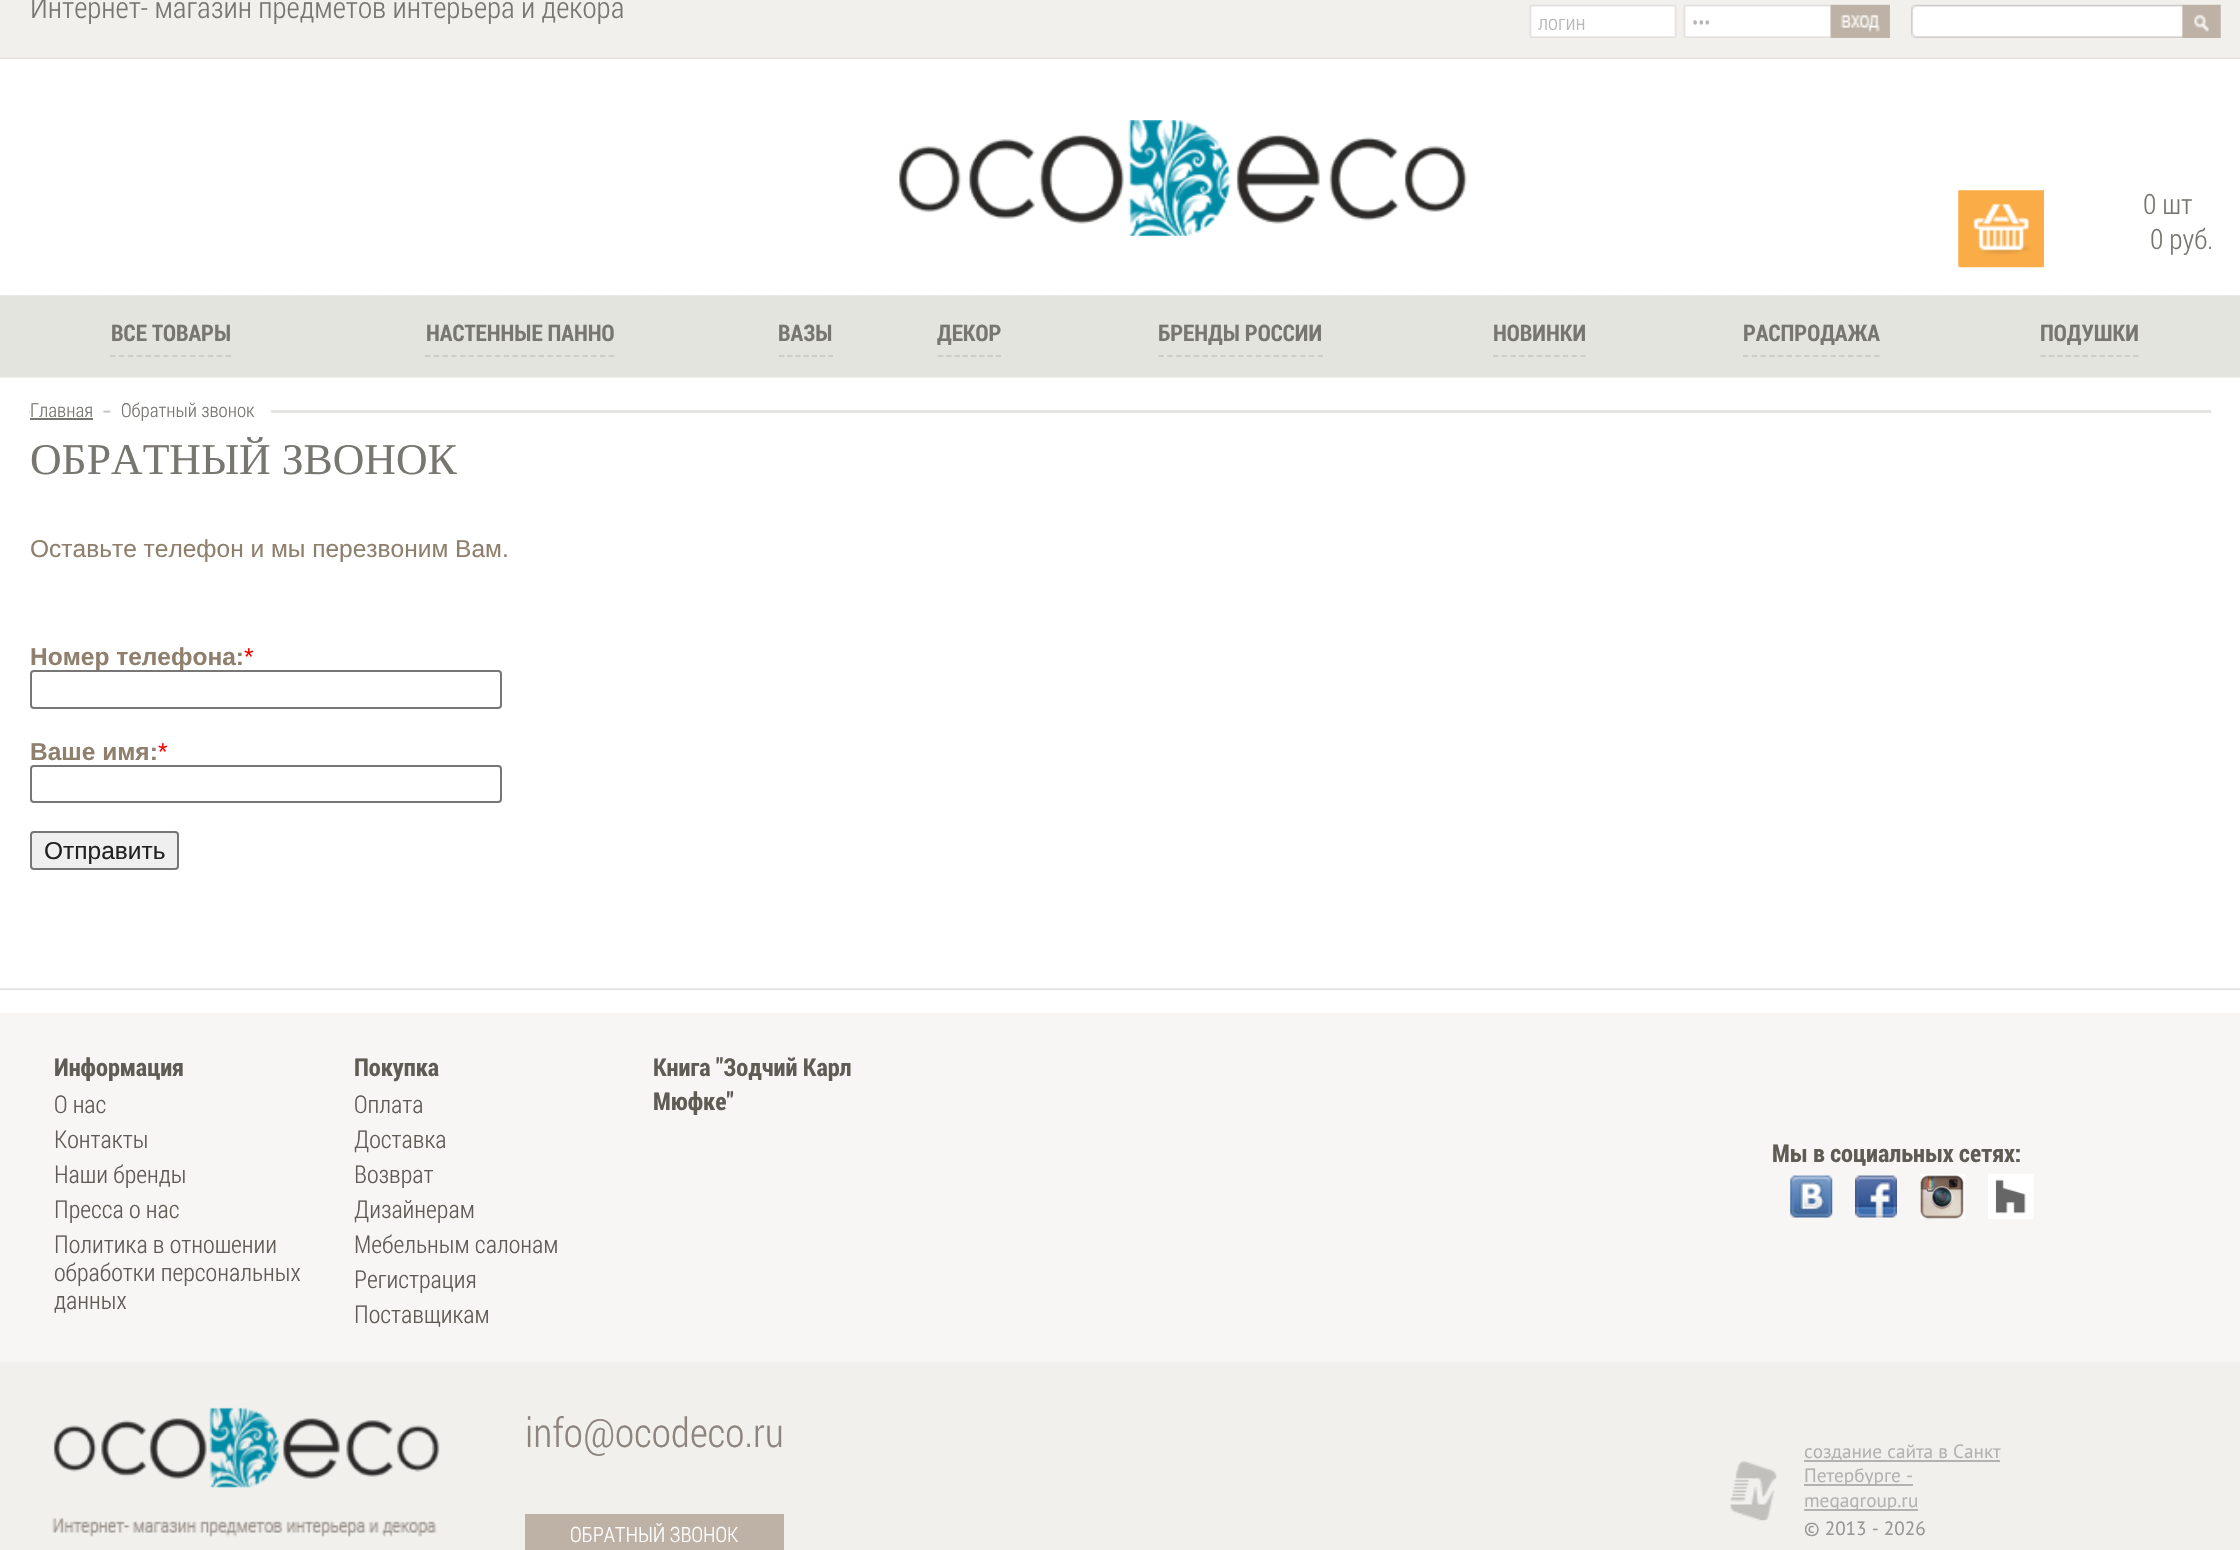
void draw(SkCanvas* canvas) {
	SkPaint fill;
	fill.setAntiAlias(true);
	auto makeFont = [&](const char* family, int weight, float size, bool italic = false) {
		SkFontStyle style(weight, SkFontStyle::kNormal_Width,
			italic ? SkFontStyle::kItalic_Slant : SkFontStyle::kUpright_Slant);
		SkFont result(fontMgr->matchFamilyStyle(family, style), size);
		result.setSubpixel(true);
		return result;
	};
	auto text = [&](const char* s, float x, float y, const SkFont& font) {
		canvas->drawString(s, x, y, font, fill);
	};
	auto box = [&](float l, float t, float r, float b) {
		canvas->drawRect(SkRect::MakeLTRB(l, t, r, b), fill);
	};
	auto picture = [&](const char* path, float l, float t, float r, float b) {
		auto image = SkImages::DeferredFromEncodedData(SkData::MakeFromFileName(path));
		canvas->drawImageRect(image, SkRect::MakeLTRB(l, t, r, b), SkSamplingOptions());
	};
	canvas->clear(0xFFFFFFFF);
	picture("image0.png", 0, 0, 2240, 59);
	picture("image1.png", 899, 120, 1467, 236);
	picture("image2.png", 1529, 4, 1677, 38);
	picture("image3.png", 1683, 4, 1831, 38);
	picture("image4.png", 1830, 4, 1890, 38);
	picture("image5.png", 1911, 4, 2221, 38);
	picture("image6.png", 0, 295, 2240, 378);
	fill.setStyle(SkPaint::kStroke_Style);
	fill.setStrokeWidth(1.8f);
	fill.setColor(0xFFCDCEC8);
	fill.setPathEffect(SkDashPathEffect::Make({{5.25f, 3.64f}}, 0));
	canvas->drawPath(SkPathBuilder().moveTo(110, 356).lineTo(231, 356).detach(), fill);
	fill.setPathEffect(nullptr);
	fill.setPathEffect(SkDashPathEffect::Make({{5.25f, 3.5f}}, 0));
	canvas->drawPath(SkPathBuilder().moveTo(425, 356).lineTo(614, 356).detach(), fill);
	fill.setPathEffect(nullptr);
	fill.setPathEffect(SkDashPathEffect::Make({{5.25f, 2.92f}}, 0));
	canvas->drawPath(SkPathBuilder().moveTo(779, 356).lineTo(833, 356).detach(), fill);
	fill.setPathEffect(nullptr);
	fill.setPathEffect(SkDashPathEffect::Make({{5.25f, 2.99f}}, 0));
	canvas->drawPath(SkPathBuilder().moveTo(938, 356).lineTo(1001, 356).detach(), fill);
	fill.setPathEffect(nullptr);
	fill.setPathEffect(SkDashPathEffect::Make({{5.25f, 3.6f}}, 0));
	canvas->drawPath(SkPathBuilder().moveTo(1158.5f, 356).lineTo(1323, 356).detach(), fill);
	fill.setPathEffect(nullptr);
	fill.setPathEffect(SkDashPathEffect::Make({{5.25f, 3.5f}}, 0));
	canvas->drawPath(SkPathBuilder().moveTo(1493, 356).lineTo(1585.5f, 356).detach(), fill);
	fill.setPathEffect(nullptr);
	fill.setPathEffect(SkDashPathEffect::Make({{5.25f, 3.5f}}, 0));
	canvas->drawPath(SkPathBuilder().moveTo(1743, 356).lineTo(1879.5f, 356).detach(), fill);
	fill.setPathEffect(nullptr);
	fill.setPathEffect(SkDashPathEffect::Make({{5.25f, 3.19f}}, 0));
	canvas->drawPath(SkPathBuilder().moveTo(2040.5f, 356).lineTo(2138.5f, 356).detach(), fill);
	fill.setPathEffect(nullptr);
	picture("image7.png", 1958, 190, 2044, 268);
	fill.setStyle(SkPaint::kFill_Style);
	fill.setColor(0xFFE4E4E2);
	box(29, 410, 2211, 413);
	fill.setColor(0xFFFFFFFF);
	box(30, 410, 271, 413);
	fill.setColor(0xFF787670);
	box(30, 418, 93, 420);
	picture("image8.png", 102, 410, 111, 413);
	fill.setStyle(SkPaint::kStroke_Style);
	fill.setStrokeWidth(2);
	fill.setColor(0xFF767676);
	canvas->drawRoundRect(SkRect::MakeLTRB(31, 766, 501, 802), 3, 3, fill);
	fill.setStyle(SkPaint::kFill_Style);
	fill.setColor(0xFFEFEFEF);
	canvas->drawRoundRect(SkRect::MakeLTRB(31, 832, 178, 869), 3, 3, fill);
	fill.setStyle(SkPaint::kStroke_Style);
	fill.setColor(0xFF767676);
	canvas->drawRoundRect(SkRect::MakeLTRB(31, 832, 178, 869), 3, 3, fill);
	fill.setStyle(SkPaint::kFill_Style);
	fill.setColor(0xFFF7F6F5);
	box(0, 1013, 2240, 1362);
	picture("image9.png", 0, 988, 2240, 1013);
	picture("image10.png", 1790, 1175, 1833, 1218);
	picture("image11.png", 1855, 1175, 1897, 1218);
	picture("image12.png", 1920, 1174, 1965, 1219);
	picture("image13.png", 1988, 1174, 2034, 1219);
	fill.setColor(0xFFF2F0ED);
	box(0, 1362, 2240, 1550);
	picture("image14.png", 53, 1393, 440, 1505);
	picture("image15.png", 52, 1518, 437, 1537);
	fill.setColor(0xFFBDB2A5);
	box(525, 1514, 784, 1550);
	picture("image16.png", 1730, 1461, 1777, 1521);
	fill.setColor(0xFFB4B2B0);
	box(1804, 1460, 2000, 1462);
	box(1804, 1484, 1913, 1486);
	box(1804, 1509, 1918, 1511);
	auto font1 = makeFont("Roboto Condensed", 300, 29.75f);
	fill.setColor(0xFF787670);
	text("Интернет- магазин предметов интерьера и декора", 30, 18, font1);
	auto font2 = makeFont("Roboto Condensed", 300, 21);
	fill.setColor(0xFFB8B7B6);
	text("логин", 1538, 30, font2);
	text("•••", 1692, 30, font2);
	auto font3 = makeFont("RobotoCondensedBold", 700, 22.75f);
	fill.setColor(0xFF787670);
	text("ВСЕ ТОВАРЫ", 111, 341, font3);
	text("НАСТЕННЫЕ ПАННО", 426, 341, font3);
	text("ВАЗЫ", 778, 341, font3);
	text("ДЕКОР", 937, 341, font3);
	text("БРЕНДЫ РОССИИ", 1158, 341, font3);
	text("НОВИНКИ", 1493, 341, font3);
	text("РАСПРОДАЖА", 1743, 341, font3);
	text("ПОДУШКИ", 2040, 341, font3);
	auto font4 = makeFont("Roboto Condensed", 300, 28);
	text("0 шт", 2143, 214, font4);
	text("0 руб.", 2150, 249, font4);
	auto font5 = makeFont("Roboto Condensed", 300, 19.25f);
	text("Главная", 30, 417, font5);
	text("Обратный звонок", 121, 417, font5);
	auto font6 = makeFont("Liberation Serif", 400, 43.75f);
	text("ОБРАТНЫЙ ЗВОНОК", 30, 474, font6);
	auto font7 = makeFont("Liberation Sans", 400, 24.5f);
	fill.setColor(0xFF8F7F6D);
	text("Оставьте телефон и мы перезвоним Вам.", 30, 557, font7);
	auto font8 = makeFont("Liberation Sans", 700, 24.5f);
	text("Номер телефона:", 30, 665, font8);
	fill.setColor(0xFFFF0000);
	text("*", 244, 665, font7);
	fill.setColor(0xFFFFFFFF);
	canvas->drawRoundRect(SkRect::MakeLTRB(31, 671, 501, 708), 3, 3, fill);
	fill.setStyle(SkPaint::kStroke_Style);
	fill.setColor(0xFF767676);
	canvas->drawRoundRect(SkRect::MakeLTRB(31, 671, 501, 708), 3, 3, fill);
	fill.setStyle(SkPaint::kFill_Style);
	fill.setColor(0xFF8F7F6D);
	text("Ваше имя:", 30, 760, font8);
	fill.setColor(0xFFFF0000);
	text("*", 158, 760, font7);
	fill.setColor(0xFF222222);
	text("Отправить", 44, 859, font7);
	auto font9 = makeFont("RobotoCondensedBold", 700, 24.5f);
	fill.setColor(0xFF5F5B55);
	text("Информация", 54, 1076, font9);
	auto font10 = makeFont("Roboto Condensed", 300, 24.5f);
	text("О нас", 54, 1113, font10);
	text("Контакты", 54, 1148, font10);
	text("Наши бренды", 54, 1183, font10);
	text("Пресса о нас", 54, 1218, font10);
	text("Политика в отношении", 54, 1253, font10);
	text("обработки персональных", 54, 1281, font10);
	text("данных", 54, 1309, font10);
	text("Покупка", 354, 1076, font9);
	text("Оплата", 354, 1113, font10);
	text("Доставка", 354, 1148, font10);
	text("Возврат", 354, 1183, font10);
	text("Дизайнерам", 354, 1218, font10);
	text("Мебельным салонам", 354, 1253, font10);
	text("Регистрация", 354, 1288, font10);
	text("Поставщикам", 354, 1323, font10);
	text("Книга \"Зодчий Карл", 653, 1076, font9);
	text("Мюфке\"", 653, 1110, font9);
	text("Мы в социальных сетях:", 1772, 1162, font9);
	auto font11 = makeFont("Roboto Condensed", 300, 40.25f);
	fill.setColor(0xFF8D847E);
	text("info@ocodeco.ru", 525, 1447, font11);
	fill.setColor(0xFFFFFFFF);
	text("ОБРАТНЫЙ ЗВОНОК", 570, 1542, font2);
	auto font12 = makeFont("PT Sans", 400, 19.25f);
	fill.setColor(0xFFB4B2B0);
	text("создание сайта в Санкт", 1804, 1458, font12);
	text("Петербурге -", 1804, 1482, font12);
	text("megagroup.ru", 1804, 1507, font12);
	fill.setColor(0xFF989694);
	text("© 2013 - 2026", 1804, 1535, font12);
}
